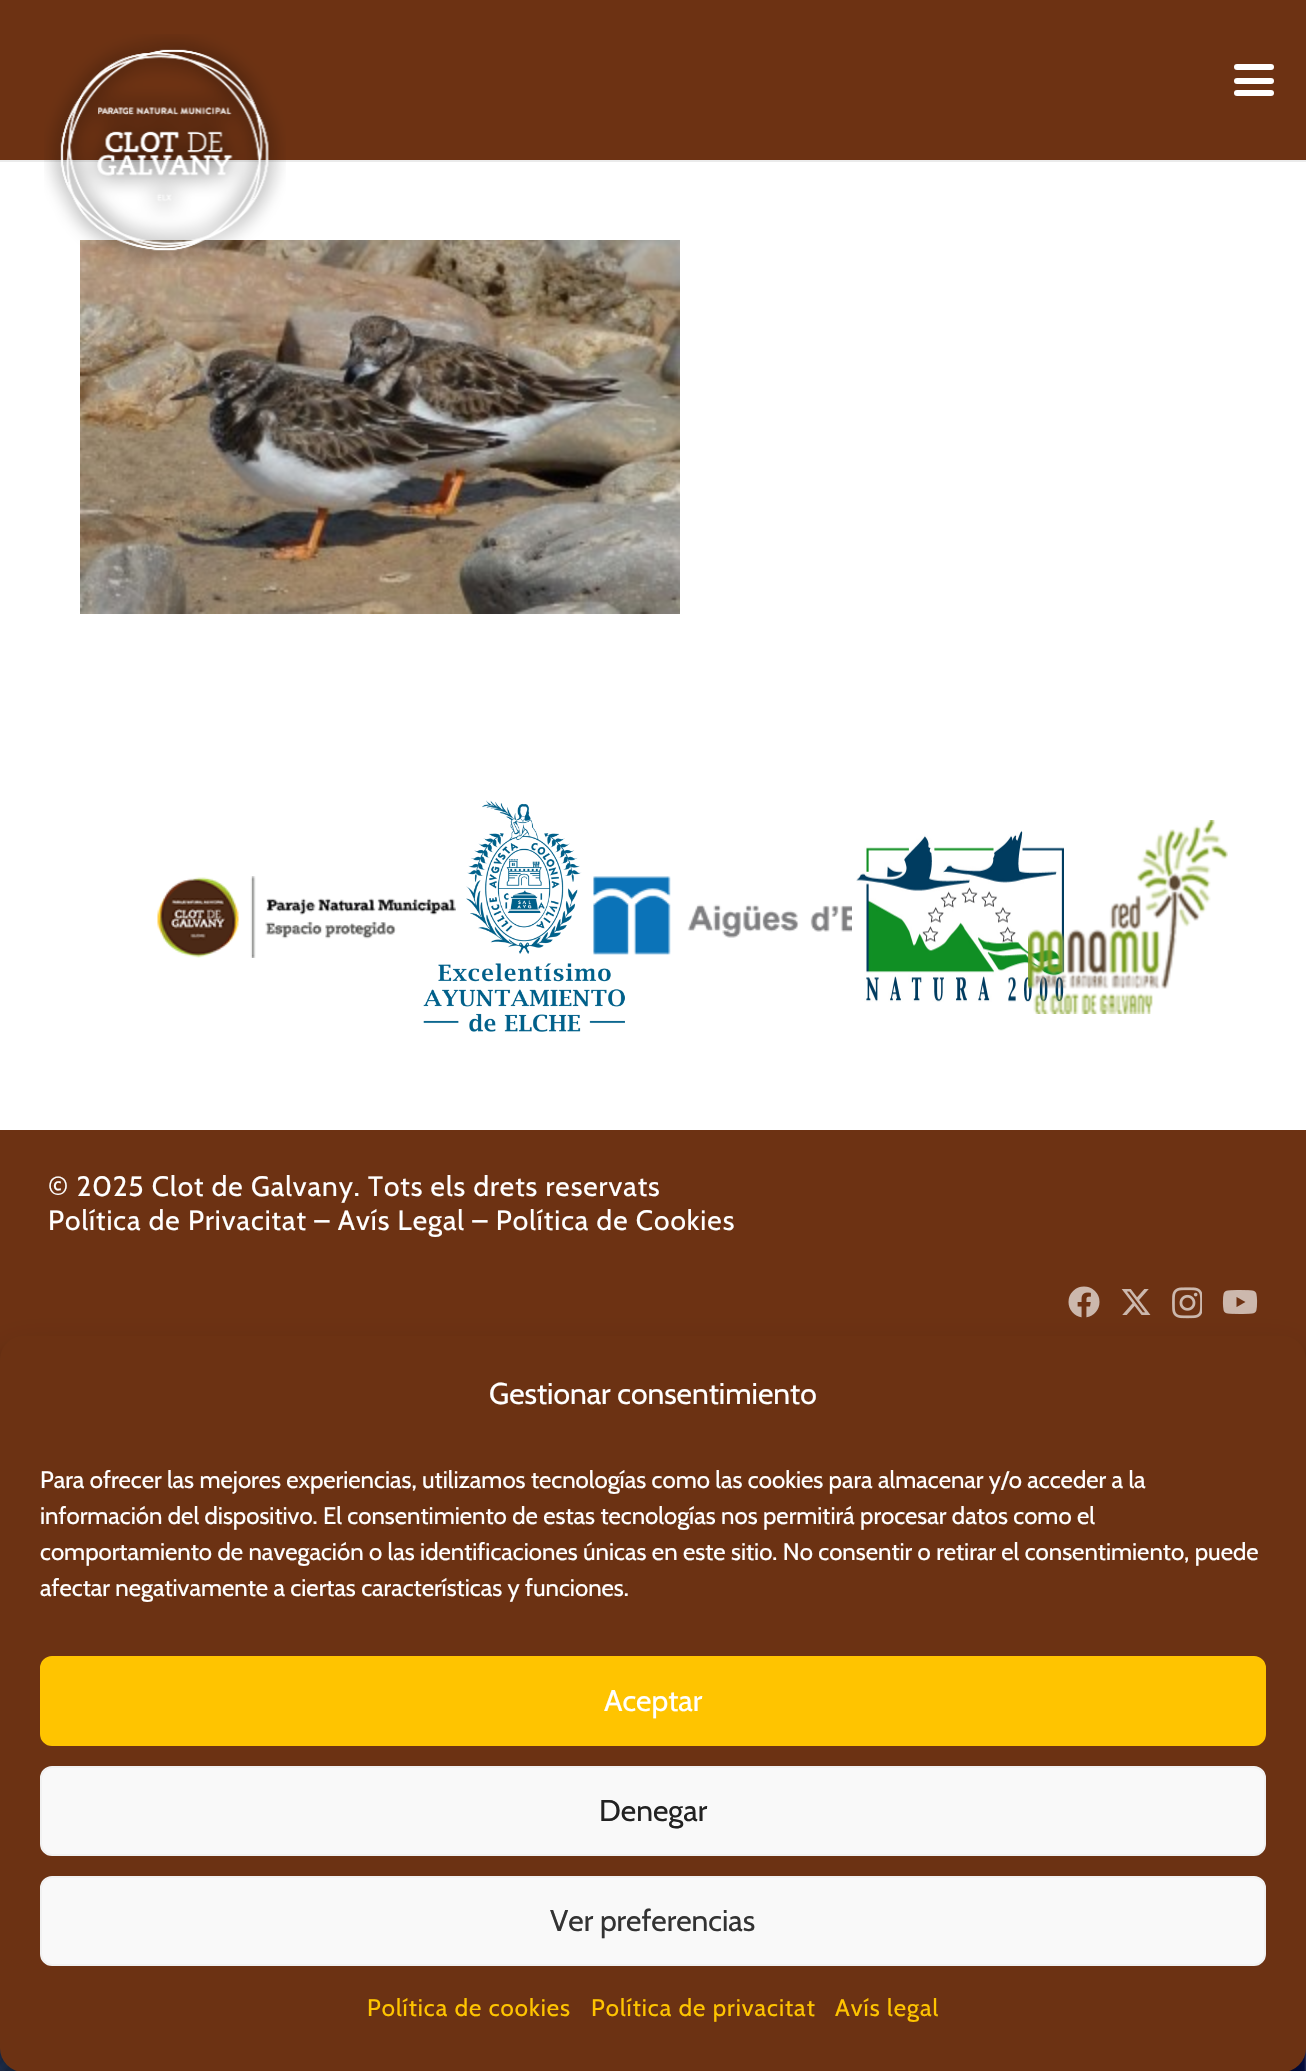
void draw(SkCanvas* canvas) {
	SkPaint fill;
	fill.setAntiAlias(true);
	auto makeFont = [&](const char* family, int weight, float size, bool italic = false) {
		SkFontStyle style(weight, SkFontStyle::kNormal_Width,
			italic ? SkFontStyle::kItalic_Slant : SkFontStyle::kUpright_Slant);
		SkFont result(fontMgr->matchFamilyStyle(family, style), size);
		result.setSubpixel(true);
		return result;
	};
	auto text = [&](const char* s, float x, float y, const SkFont& font) {
		canvas->drawString(s, x, y, font, fill);
	};
	auto spacedText = [&](const char* s, float x, float y, const SkFont& font, const SkPaint& ink, float letter, float word) {
		std::vector<SkGlyphID> glyphs(font.countText(s, strlen(s), SkTextEncoding::kUTF8));
		std::vector<float> xs(glyphs.size());
		font.textToGlyphs(s, strlen(s), SkTextEncoding::kUTF8, glyphs);
		font.getXPos(glyphs, xs, x);
		float extra = 0;
		for (size_t i = 0; i < glyphs.size(); i++) {
			xs[i] += extra;
			extra += letter + word * (glyphs[i] == font.unicharToGlyph(' '));
		}
		canvas->drawTextBlob(SkTextBlob::MakeFromPosHGlyphs(glyphs, xs, y, font), 0, 0, ink);
	};
	auto box = [&](float l, float t, float r, float b) {
		canvas->drawRect(SkRect::MakeLTRB(l, t, r, b), fill);
	};
	auto roundBox = [&](float l, float t, float r, float b, float radius) {
		canvas->drawRoundRect(SkRect::MakeLTRB(l, t, r, b), radius, radius, fill);
	};
	auto picture = [&](const char* path, float l, float t, float r, float b) {
		auto image = SkImages::DeferredFromEncodedData(SkData::MakeFromFileName(path));
		canvas->drawImageRect(image, SkRect::MakeLTRB(l, t, r, b), SkSamplingOptions());
	};
	canvas->clear(0xFFFFFFFF);
	picture("image0.png", 0, 2048, 1306, 2071);
	fill.setColor(0xFFEBEBEB);
	box(0, 160, 1306, 162);
	fill.setColor(0xFF6D3213);
	box(0, 0, 1306, 160);
	picture("image2.png", 80, 240, 680, 614);
	picture("image1.png", 44, 34, 286, 268);
	fill.setColor(0xFFFFFFFF);
	roundBox(1234, 78, 1274, 84, 3);
	roundBox(1234, 64, 1274, 70, 3);
	roundBox(1234, 90, 1274, 96, 3);
	picture("image3.png", 157, 876, 456, 958);
	picture("image4.png", 423, 800, 625, 1032);
	picture("image5.png", 593, 876, 852, 955);
	picture("image6.png", 852, 830, 1064, 1002);
	picture("image7.png", 1028, 820, 1228, 1014);
	fill.setColor(0xFF6D3213);
	box(0, 1130, 1306, 1360);
	picture("image8.png", 1068, 1286, 1100, 1318);
	picture("image9.png", 1121, 1289, 1151, 1315);
	picture("image10.png", 1172, 1287, 1202, 1319);
	picture("image11.png", 1222, 1290, 1258, 1314);
	fill.setColor(0x3B000000);
	fill.setMaskFilter(SkMaskFilter::MakeBlur(kNormal_SkBlurStyle, 6));
	canvas->drawRoundRect(SkRect::MakeLTRB(0, 1348, 1306, 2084), 24, 24, fill);
	fill.setMaskFilter(nullptr);
	fill.setColor(0x30000000);
	fill.setMaskFilter(SkMaskFilter::MakeBlur(kNormal_SkBlurStyle, 20));
	canvas->drawRoundRect(SkRect::MakeLTRB(0, 1356, 1306, 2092), 24, 24, fill);
	fill.setMaskFilter(nullptr);
	fill.setColor(0xFF808080);
	fill.setMaskFilter(SkMaskFilter::MakeBlur(kNormal_SkBlurStyle, 5));
	canvas->drawRoundRect(SkRect::MakeLTRB(1166, 1924, 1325, 2044), 4, 4, fill);
	fill.setMaskFilter(nullptr);
	fill.setColor(0xFF6C3213);
	roundBox(0, 1336, 1306, 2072, 24);
	fill.setColor(0xFFFFC400);
	canvas->drawRoundRect(SkRect::MakeLTRB(41, 1657, 1265, 1745), 11, 11, fill);
	fill.setStyle(SkPaint::kStroke_Style);
	fill.setStrokeWidth(2);
	canvas->drawRoundRect(SkRect::MakeLTRB(41, 1657, 1265, 1745), 11, 11, fill);
	fill.setStyle(SkPaint::kFill_Style);
	fill.setColor(0xFFF9F9F9);
	canvas->drawRoundRect(SkRect::MakeLTRB(41, 1767, 1265, 1855), 11, 11, fill);
	fill.setStyle(SkPaint::kStroke_Style);
	fill.setColor(0xFFF2F2F2);
	canvas->drawRoundRect(SkRect::MakeLTRB(41, 1767, 1265, 1855), 11, 11, fill);
	fill.setStyle(SkPaint::kFill_Style);
	fill.setColor(0xFFF9F9F9);
	canvas->drawRoundRect(SkRect::MakeLTRB(41, 1877, 1265, 1965), 11, 11, fill);
	fill.setStyle(SkPaint::kStroke_Style);
	fill.setColor(0xFFF2F2F2);
	canvas->drawRoundRect(SkRect::MakeLTRB(41, 1877, 1265, 1965), 11, 11, fill);
	auto font1 = makeFont("Cabin", 400, 28);
	fill.setStyle(SkPaint::kFill_Style);
	fill.setColor(0xFFFFFFFF);
	spacedText("© 2025 Clot de Galvany. Tots els drets reservats", 48, 1196, font1, fill, 1, 0);
	spacedText("Política de Privacitat – Avís Legal – Política de Cookies", 48, 1230, font1, fill, 1, 0);
	auto font2 = makeFont("Cabin", 400, 30);
	text("Gestionar consentimiento", 489, 1404, font2);
	auto font3 = makeFont("Cabin", 400, 24);
	text("Para ofrecer las mejores experiencias, utilizamos tecnologías como las cookies para almacenar y/o acceder a la", 40, 1488, font3);
	text("información del dispositivo. El consentimiento de estas tecnologías nos permitirá procesar datos como el", 40, 1524, font3);
	text("comportamiento de navegación o las identificaciones únicas en este sitio. No consentir o retirar el consentimiento, puede", 40, 1560, font3);
	text("afectar negativamente a ciertas características y funciones.", 40, 1596, font3);
	text("Aceptar", 604, 1711, font2);
	fill.setColor(0xFF222222);
	text("Denegar", 599, 1821, font2);
	fill.setColor(0xFF333333);
	text("Ver preferencias", 550, 1931, font2);
	fill.setColor(0xFFFFC400);
	spacedText("Política de cookies", 367, 2016, font3, fill, 1, 0);
	spacedText("Política de privacitat", 591, 2016, font3, fill, 1, 0);
	spacedText("Avís legal", 835, 2016, font3, fill, 1, 0);
}
